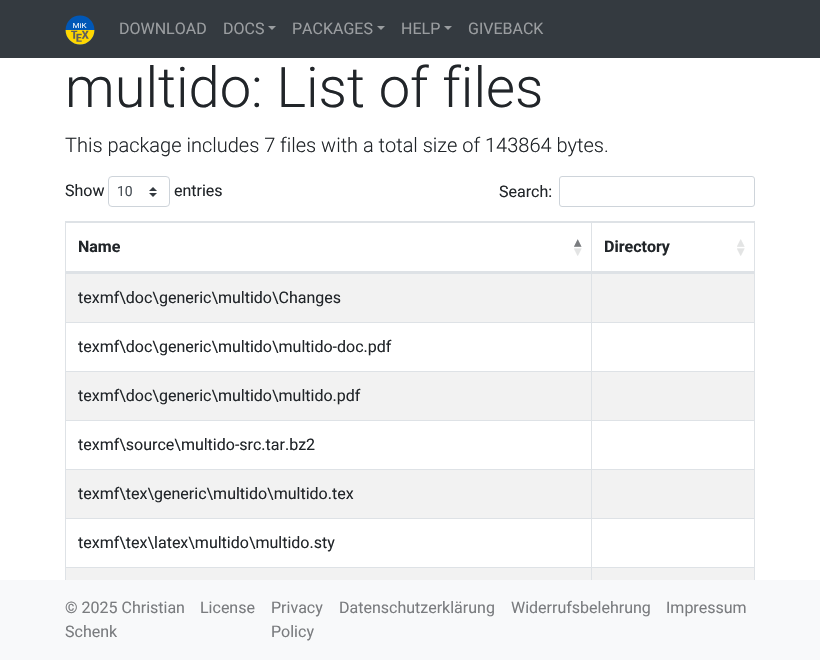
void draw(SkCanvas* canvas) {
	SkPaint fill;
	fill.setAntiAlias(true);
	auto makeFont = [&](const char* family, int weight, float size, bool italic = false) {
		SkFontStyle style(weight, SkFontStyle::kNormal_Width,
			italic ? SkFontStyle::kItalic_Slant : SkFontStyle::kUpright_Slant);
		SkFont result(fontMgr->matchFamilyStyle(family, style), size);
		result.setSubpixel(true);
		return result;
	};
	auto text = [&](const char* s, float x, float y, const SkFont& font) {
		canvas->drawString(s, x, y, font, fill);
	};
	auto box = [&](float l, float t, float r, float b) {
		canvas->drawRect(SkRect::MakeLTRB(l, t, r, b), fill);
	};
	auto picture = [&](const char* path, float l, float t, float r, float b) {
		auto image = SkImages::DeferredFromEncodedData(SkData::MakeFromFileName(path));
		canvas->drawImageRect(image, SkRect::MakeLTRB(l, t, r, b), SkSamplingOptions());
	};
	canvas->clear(0xFFFFFFFF);
	fill.setColor(0xFF343A40);
	box(0, 0, 820, 58);
	picture("image0.png", 65, 15, 95, 45);
	fill.setColor(0xFF9A9DA0);
	canvas->drawPath(SkPathBuilder().moveTo(268, 26).lineTo(276, 26).lineTo(272, 30).close().detach(), fill);
	canvas->drawPath(SkPathBuilder().moveTo(377, 26).lineTo(385, 26).lineTo(381, 30).close().detach(), fill);
	canvas->drawPath(SkPathBuilder().moveTo(444, 26).lineTo(452, 26).lineTo(448, 30).close().detach(), fill);
	picture("image1.png", 149, 187, 157, 197);
	fill.setStyle(SkPaint::kStroke_Style);
	fill.setStrokeWidth(1);
	fill.setColor(0xFFCED4DA);
	canvas->drawRoundRect(SkRect::MakeLTRB(108.5f, 176.5f, 169.5f, 206.5f), 3.5f, 3.5f, fill);
	canvas->drawRoundRect(SkRect::MakeLTRB(559.5f, 176.5f, 754.5f, 206.5f), 2.5f, 2.5f, fill);
	fill.setStyle(SkPaint::kFill_Style);
	fill.setColor(0xFFDEE2E6);
	box(65, 221, 755, 222);
	box(65, 221, 66, 580);
	box(66, 222, 755, 223);
	box(591, 222, 592, 273);
	box(66, 271, 592, 273);
	box(754, 222, 755, 273);
	box(592, 271, 755, 273);
	fill.setColor(0xFFF2F2F2);
	box(66, 274, 591, 322);
	fill.setColor(0xFFDEE2E6);
	box(66, 273, 755, 274);
	box(591, 273, 592, 322);
	fill.setColor(0xFFF2F2F2);
	box(592, 274, 754, 322);
	fill.setColor(0xFFDEE2E6);
	box(754, 273, 755, 322);
	box(66, 322, 755, 323);
	box(591, 322, 592, 371);
	box(754, 322, 755, 371);
	fill.setColor(0xFFF2F2F2);
	box(66, 372, 591, 420);
	fill.setColor(0xFFDEE2E6);
	box(66, 371, 755, 372);
	box(591, 371, 592, 420);
	fill.setColor(0xFFF2F2F2);
	box(592, 372, 754, 420);
	fill.setColor(0xFFDEE2E6);
	box(754, 371, 755, 420);
	box(66, 420, 755, 421);
	box(591, 420, 592, 469);
	box(754, 420, 755, 469);
	fill.setColor(0xFFF2F2F2);
	box(66, 470, 591, 518);
	fill.setColor(0xFFDEE2E6);
	box(66, 469, 755, 470);
	box(591, 469, 592, 518);
	fill.setColor(0xFFF2F2F2);
	box(592, 470, 754, 518);
	fill.setColor(0xFFDEE2E6);
	box(754, 469, 755, 518);
	box(66, 518, 755, 519);
	box(591, 518, 592, 567);
	box(754, 518, 755, 567);
	fill.setColor(0xFFF2F2F2);
	box(66, 568, 591, 580);
	fill.setColor(0xFFDEE2E6);
	box(66, 567, 755, 568);
	box(591, 567, 592, 580);
	fill.setColor(0xFFF2F2F2);
	box(592, 568, 754, 580);
	fill.setColor(0xFFDEE2E6);
	box(754, 567, 755, 580);
	fill.setColor(0xFFF8F9FA);
	box(0, 580, 820, 660);
	auto font1 = makeFont("Roboto", 400, 16);
	fill.setColor(0xFF9A9DA0);
	text("DOWNLOAD", 119, 34, font1);
	text("DOCS", 223, 34, font1);
	text("PACKAGES", 292, 34, font1);
	text("HELP", 401, 34, font1);
	text("GIVEBACK", 468, 34, font1);
	auto font2 = makeFont("Roboto", 300, 56);
	fill.setColor(0xFF212529);
	text("multido: List of files", 65, 107, font2);
	auto font3 = makeFont("Roboto", 300, 20);
	text("This package includes 7 files with a total size of 143864 bytes.", 65, 152, font3);
	text("Show", 65, 196, font1);
	auto font4 = makeFont("Roboto", 400, 14);
	fill.setColor(0xFF495057);
	text("10", 117, 196, font4);
	fill.setColor(0xFF212529);
	text("entries", 174, 196, font1);
	text("Search:", 499, 197, font1);
	auto font5 = makeFont("Roboto", 700, 16);
	text("Name", 78, 252, font5);
	auto font6 = makeFont("DejaVu Sans", 700, 14);
	fill.setColor(0xFF7A7C7F);
	text("▴", 574, 247, font6);
	fill.setColor(0xFFE3E4E4);
	text("▾", 574, 256, font6);
	fill.setColor(0xFF212529);
	text("Directory", 604, 252, font5);
	fill.setColor(0xFFE3E4E4);
	text("▴", 737, 247, font6);
	text("▾", 737, 256, font6);
	fill.setColor(0xFF212529);
	text("texmf\\doc\\generic\\multido\\Changes", 78, 303, font1);
	text("texmf\\doc\\generic\\multido\\multido-doc.pdf", 78, 352, font1);
	text("texmf\\doc\\generic\\multido\\multido.pdf", 78, 401, font1);
	text("texmf\\source\\multido-src.tar.bz2", 78, 450, font1);
	text("texmf\\tex\\generic\\multido\\multido.tex", 78, 499, font1);
	text("texmf\\tex\\latex\\multido\\multido.sty", 78, 548, font1);
	fill.setColor(0xFF7A7C7F);
	text("© 2025 Christian", 65, 613, font1);
	text("Schenk", 65, 637, font1);
	text("License", 200, 613, font1);
	text("Privacy", 271, 613, font1);
	text("Policy", 271, 637, font1);
	text("Datenschutzerklärung", 339, 613, font1);
	text("Widerrufsbelehrung", 511, 613, font1);
	text("Impressum", 666, 613, font1);
}
